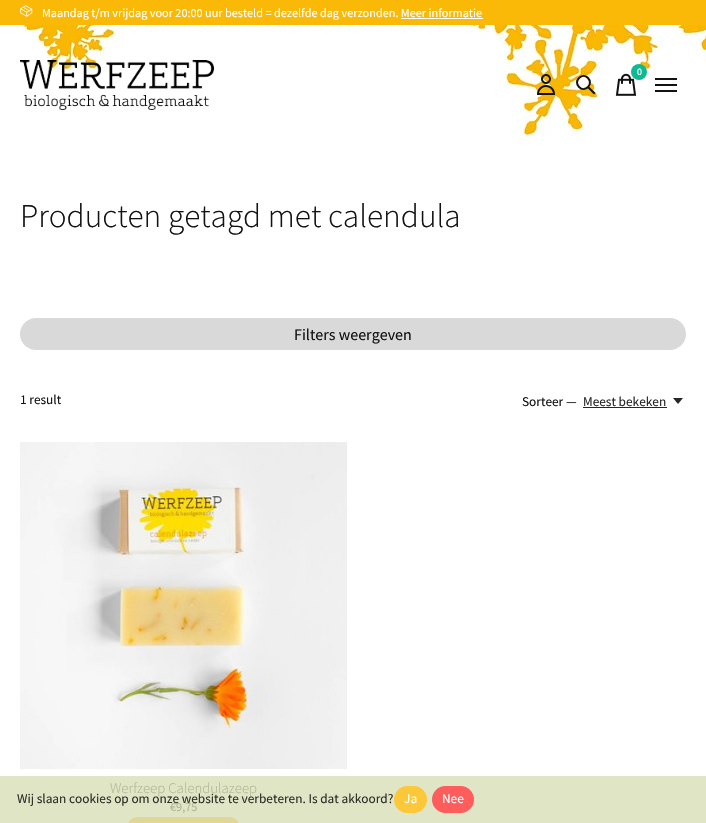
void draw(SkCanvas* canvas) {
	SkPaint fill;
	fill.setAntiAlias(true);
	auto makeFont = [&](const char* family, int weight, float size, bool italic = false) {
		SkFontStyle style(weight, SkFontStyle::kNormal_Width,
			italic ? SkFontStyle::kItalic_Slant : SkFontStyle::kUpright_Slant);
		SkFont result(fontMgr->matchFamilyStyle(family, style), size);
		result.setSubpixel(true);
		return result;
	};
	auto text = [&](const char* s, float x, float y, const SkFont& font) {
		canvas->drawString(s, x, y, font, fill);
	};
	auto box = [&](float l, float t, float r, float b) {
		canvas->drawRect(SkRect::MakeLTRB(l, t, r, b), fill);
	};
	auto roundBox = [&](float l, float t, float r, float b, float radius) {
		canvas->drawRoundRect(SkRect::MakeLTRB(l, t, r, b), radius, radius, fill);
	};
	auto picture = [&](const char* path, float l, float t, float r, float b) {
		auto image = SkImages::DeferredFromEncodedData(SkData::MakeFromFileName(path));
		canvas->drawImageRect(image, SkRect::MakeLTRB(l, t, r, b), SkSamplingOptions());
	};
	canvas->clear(0xFFFFFFFF);
	fill.setColor(0xFFE0E5C5);
	box(0, 776, 706, 823);
	fill.setColor(0xFFFBB907);
	box(0, 0, 706, 25);
	picture("image0.png", 20, 5, 33, 17);
	fill.setColor(0xFFFFFFFF);
	box(401, 18, 483, 19);
	picture("image1.png", 23, 25, 706, 137);
	picture("image2.png", 20, 60, 214, 110);
	picture("image3.png", 615, 73, 637, 96);
	fill.setColor(0xFF0EB994);
	canvas->drawCircle(639, 72, 8, fill);
	picture("image4.png", 537, 74, 555, 95);
	fill.setStyle(SkPaint::kStroke_Style);
	fill.setStrokeWidth(2);
	fill.setStrokeCap(SkPaint::kSquare_Cap);
	fill.setColor(0xFF121212);
	canvas->drawPath(SkPathBuilder().moveTo(588, 87).lineTo(594, 93).moveTo(588, 78).cubicTo(594, 84, 585, 93, 579, 87).cubicTo(573, 81, 582, 72, 588, 78).detach(), fill);
	fill.setStyle(SkPaint::kFill_Style);
	box(655, 78, 677, 80);
	box(655, 84, 677, 86);
	box(655, 90, 677, 92);
	fill.setColor(0xFFD9D9D9);
	roundBox(20, 318, 686, 350, 16);
	fill.setColor(0xFF262626);
	box(583, 407, 667, 408);
	canvas->drawPath(SkPathBuilder().moveTo(673, 398).lineTo(678, 404).lineTo(683, 398).close().detach(), fill);
	picture("image5.png", 20, 442, 347, 769);
	fill.setColor(0xFFDFD793);
	roundBox(128, 817, 239, 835, 12);
	fill.setColor(0xFFFCC739);
	roundBox(394, 786, 427, 813, 13.5f);
	fill.setColor(0xFFFF5C5C);
	roundBox(432, 786, 474, 813, 13.5f);
	auto font1 = makeFont("Source Sans Pro", 400, 12.2f);
	fill.setColor(0xFFFFFFFF);
	text("Maandag t/m vrijdag voor 20:00 uur besteld = dezelfde dag verzonden. Meer informatie", 42, 17, font1);
	auto font2 = makeFont("Source Sans Pro", 400, 10);
	text("0", 637, 75, font2);
	auto font3 = makeFont("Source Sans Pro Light", 300, 33.25f);
	fill.setColor(0xFF121212);
	text("Producten getagd met calendula", 20, 227, font3);
	auto font4 = makeFont("Source Sans Pro", 400, 16);
	text("Filters weergeven", 294, 340, font4);
	auto font5 = makeFont("Source Sans Pro", 400, 13.3f);
	text("1 result", 20, 404, font5);
	text("Sorteer —", 522, 406, font5);
	fill.setColor(0xFF262626);
	text("Meest bekeken", 583, 406, font5);
	auto font6 = makeFont("Source Sans Pro Light", 300, 14.75f);
	fill.setColor(0xFFB0B695);
	text("Werfzeep Calendulazeep", 110, 793, font6);
	text("€9,75", 170, 811, font1);
	fill.setColor(0xFF2D2E27);
	text("Wij slaan cookies op om onze website te verbeteren. Is dat akkoord?", 17, 803, font5);
	fill.setColor(0xFFFFFFFF);
	text("Ja", 404, 803, font5);
	text("Nee", 442, 803, font5);
}
